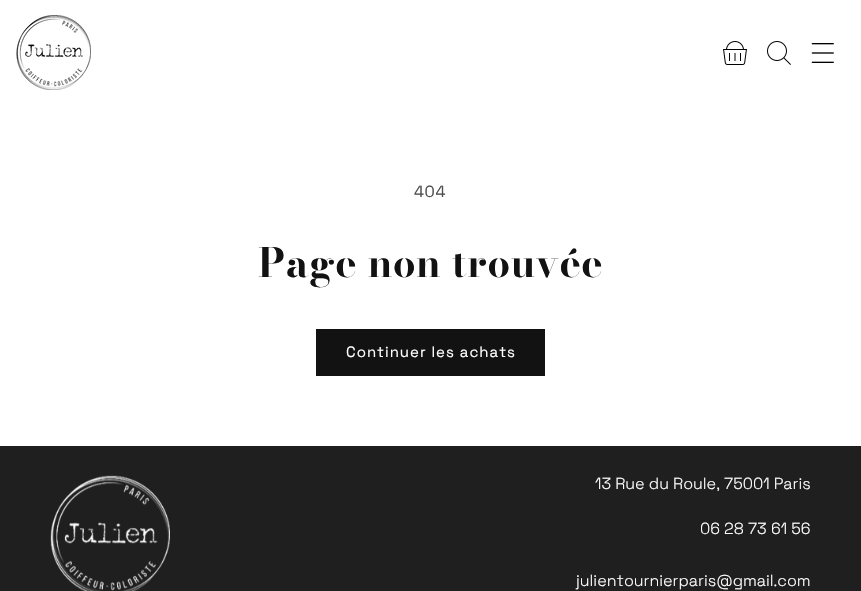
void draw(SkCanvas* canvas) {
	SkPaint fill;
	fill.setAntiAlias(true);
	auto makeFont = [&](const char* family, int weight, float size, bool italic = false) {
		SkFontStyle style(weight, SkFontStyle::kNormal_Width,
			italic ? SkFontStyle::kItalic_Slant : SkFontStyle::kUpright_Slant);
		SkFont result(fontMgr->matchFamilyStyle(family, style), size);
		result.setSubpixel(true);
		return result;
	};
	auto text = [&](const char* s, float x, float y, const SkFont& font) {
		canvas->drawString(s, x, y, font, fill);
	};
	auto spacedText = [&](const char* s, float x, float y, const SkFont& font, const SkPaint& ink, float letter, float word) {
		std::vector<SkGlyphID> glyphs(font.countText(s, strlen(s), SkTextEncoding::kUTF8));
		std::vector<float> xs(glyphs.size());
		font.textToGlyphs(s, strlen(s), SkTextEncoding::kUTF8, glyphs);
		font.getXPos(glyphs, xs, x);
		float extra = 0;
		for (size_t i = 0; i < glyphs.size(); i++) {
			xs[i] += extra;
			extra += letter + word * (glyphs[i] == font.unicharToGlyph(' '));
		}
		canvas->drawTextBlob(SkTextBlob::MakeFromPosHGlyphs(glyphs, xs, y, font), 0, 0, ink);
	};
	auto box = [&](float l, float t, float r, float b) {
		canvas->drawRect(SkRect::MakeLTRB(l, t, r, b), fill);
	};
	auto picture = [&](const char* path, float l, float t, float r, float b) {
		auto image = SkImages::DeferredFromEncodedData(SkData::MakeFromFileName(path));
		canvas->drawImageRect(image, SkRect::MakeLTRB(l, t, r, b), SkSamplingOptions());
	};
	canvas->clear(0xFFFFFFFF);
	picture("image0.png", 16, 15, 91, 90);
	picture("image1.png", 723, 41, 747, 65);
	picture("image2.png", 767, 41, 791, 65);
	picture("image3.png", 811, 43, 834, 63);
	fill.setColor(0xFF121212);
	box(316, 329, 545, 376);
	fill.setColor(0xFF1F1F1F);
	box(0, 446, 861, 591);
	picture("image4.png", 50, 475, 170, 591);
	auto font1 = makeFont("Space Grotesk", 400, 16);
	fill.setColor(0xFF4D4D4D);
	spacedText("404", 414, 197, font1, fill, 0.6f, 0);
	auto font2 = makeFont("Bodoni Moda", 700, 40);
	fill.setColor(0xFF121212);
	spacedText("Page non trouvée", 258, 277, font2, fill, 0.6f, 0);
	auto font3 = makeFont("Space Grotesk", 400, 15);
	fill.setColor(0xFFFFFFFF);
	spacedText("Continuer les achats", 346, 357, font3, fill, 1, 0);
	auto font4 = makeFont("Space Grotesk", 300, 16);
	text("13 Rue du Roule, 75001 Paris", 595, 489, font4);
	text("06 28 73 61 56", 700, 534, font4);
	text("julientournierparis@gmail.com", 576, 586, font4);
}
